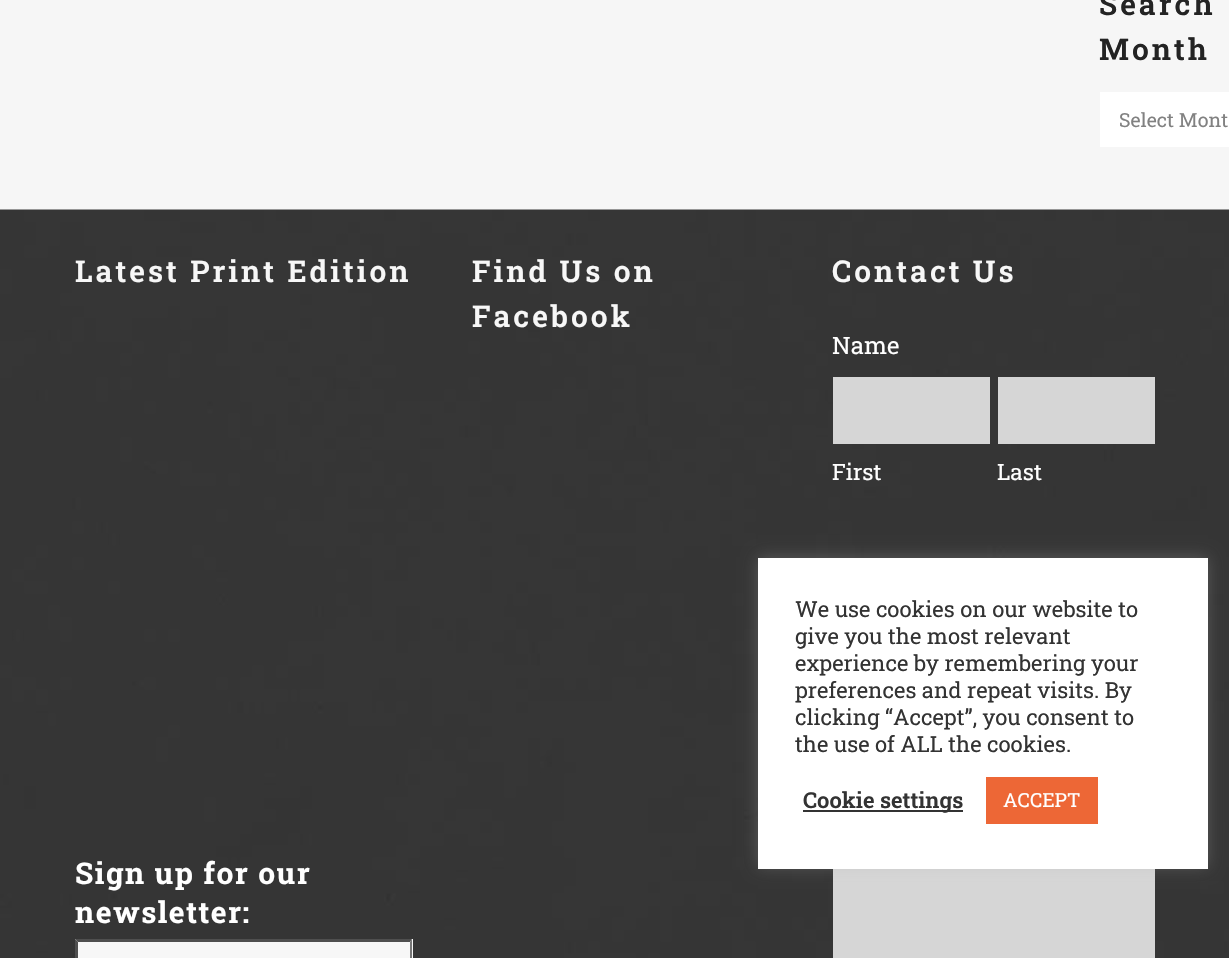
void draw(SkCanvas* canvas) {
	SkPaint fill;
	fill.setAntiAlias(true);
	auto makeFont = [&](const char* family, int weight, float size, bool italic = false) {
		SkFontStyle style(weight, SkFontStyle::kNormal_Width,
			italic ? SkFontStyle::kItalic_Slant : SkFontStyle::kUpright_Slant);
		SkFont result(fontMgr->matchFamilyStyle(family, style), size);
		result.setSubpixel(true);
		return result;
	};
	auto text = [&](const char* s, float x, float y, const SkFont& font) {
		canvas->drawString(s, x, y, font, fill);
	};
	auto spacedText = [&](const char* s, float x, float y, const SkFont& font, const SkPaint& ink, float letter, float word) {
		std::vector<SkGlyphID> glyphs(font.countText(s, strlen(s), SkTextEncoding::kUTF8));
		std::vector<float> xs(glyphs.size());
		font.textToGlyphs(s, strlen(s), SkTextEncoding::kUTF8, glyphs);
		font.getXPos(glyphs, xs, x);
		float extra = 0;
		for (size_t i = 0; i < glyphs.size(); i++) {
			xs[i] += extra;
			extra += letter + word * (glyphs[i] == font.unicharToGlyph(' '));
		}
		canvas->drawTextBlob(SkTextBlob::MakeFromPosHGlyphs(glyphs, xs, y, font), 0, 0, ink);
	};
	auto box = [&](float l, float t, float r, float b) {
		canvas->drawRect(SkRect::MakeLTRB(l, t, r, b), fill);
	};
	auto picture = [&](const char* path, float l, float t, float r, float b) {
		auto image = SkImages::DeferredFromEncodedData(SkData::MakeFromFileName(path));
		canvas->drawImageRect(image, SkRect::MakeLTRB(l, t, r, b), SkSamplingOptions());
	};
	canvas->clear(0xFFF6F6F6);
	fill.setColor(0xFFFFFFFF);
	box(1100, 92, 1229, 147);
	picture("image0.png", 0, 209, 1229, 958);
	fill.setColor(0xFFF7F7F7);
	box(75, 939, 413, 958);
	fill.setColor(0xFF4F4F4F);
	canvas->drawPath(SkPathBuilder().moveTo(75, 939).lineTo(412, 939).lineTo(410, 942).lineTo(78, 942).close().detach(), fill);
	fill.setColor(0xFF767676);
	canvas->drawPath(SkPathBuilder().moveTo(412, 939).lineTo(412, 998).lineTo(410, 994).lineTo(410, 942).close().detach(), fill);
	fill.setColor(0xFF4F4F4F);
	canvas->drawPath(SkPathBuilder().moveTo(75, 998).lineTo(75, 939).lineTo(78, 942).lineTo(78, 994).close().detach(), fill);
	fill.setColor(0xFFD6D6D6);
	box(833, 377, 990, 444);
	box(998, 377, 1155, 444);
	box(833, 869, 1155, 958);
	fill.setColor(0x4DACABAB);
	fill.setMaskFilter(SkMaskFilter::MakeBlur(kNormal_SkBlurStyle, 7.5f));
	canvas->drawRect(SkRect::MakeLTRB(758, 557, 1208, 867), fill);
	fill.setMaskFilter(nullptr);
	fill.setColor(0xFFFFFFFF);
	box(758, 558, 1208, 869);
	fill.setColor(0xFF333333);
	box(803, 810, 963, 812);
	fill.setColor(0xFFED6736);
	box(986, 777, 1098, 824);
	auto font1 = makeFont("Roboto Slab", 600, 30);
	fill.setColor(0xFF232323);
	spacedText("Search", 1099, 15, font1, fill, 3, 0);
	spacedText("Month", 1099, 60, font1, fill, 3, 0);
	auto font2 = makeFont("Roboto Slab", 400, 19.5f);
	fill.setColor(0xFF818181);
	text("Select Mont", 1119, 127, font2);
	fill.setColor(0xFFF7F7F7);
	spacedText("Latest Print Edition", 75, 282, font1, fill, 3, 0);
	auto font3 = makeFont("Roboto Slab", 700, 30);
	fill.setColor(0xFFFFFFFF);
	spacedText("Sign up for our", 75, 884, font3, fill, 1.5f, 0);
	spacedText("newsletter:", 75, 923, font3, fill, 1.5f, 0);
	fill.setColor(0xFFF7F7F7);
	spacedText("Find Us on", 472, 282, font1, fill, 3, 0);
	spacedText("Facebook", 472, 327, font1, fill, 3, 0);
	spacedText("Contact Us", 832, 282, font1, fill, 3, 0);
	auto font4 = makeFont("Roboto Slab", 400, 24);
	fill.setColor(0xFFFFFFFF);
	text("Name", 832, 354, font4);
	auto font5 = makeFont("Roboto Slab", 400, 22.5f);
	text("First", 832, 480, font5);
	text("Last", 997, 480, font5);
	auto font6 = makeFont("Roboto Slab", 400, 22);
	fill.setColor(0xFF333333);
	text("We use cookies on our website to", 795, 617, font6);
	text("give you the most relevant", 795, 644, font6);
	text("experience by remembering your", 795, 671, font6);
	text("preferences and repeat visits. By", 795, 698, font6);
	text("clicking “Accept”, you consent to", 795, 725, font6);
	text("the use of ALL the cookies.", 795, 752, font6);
	auto font7 = makeFont("Roboto Slab", 600, 22);
	text("Cookie settings", 803, 808, font7);
	fill.setColor(0xFFFFFFFF);
	text("ACCEPT", 1003, 807, font2);
}
